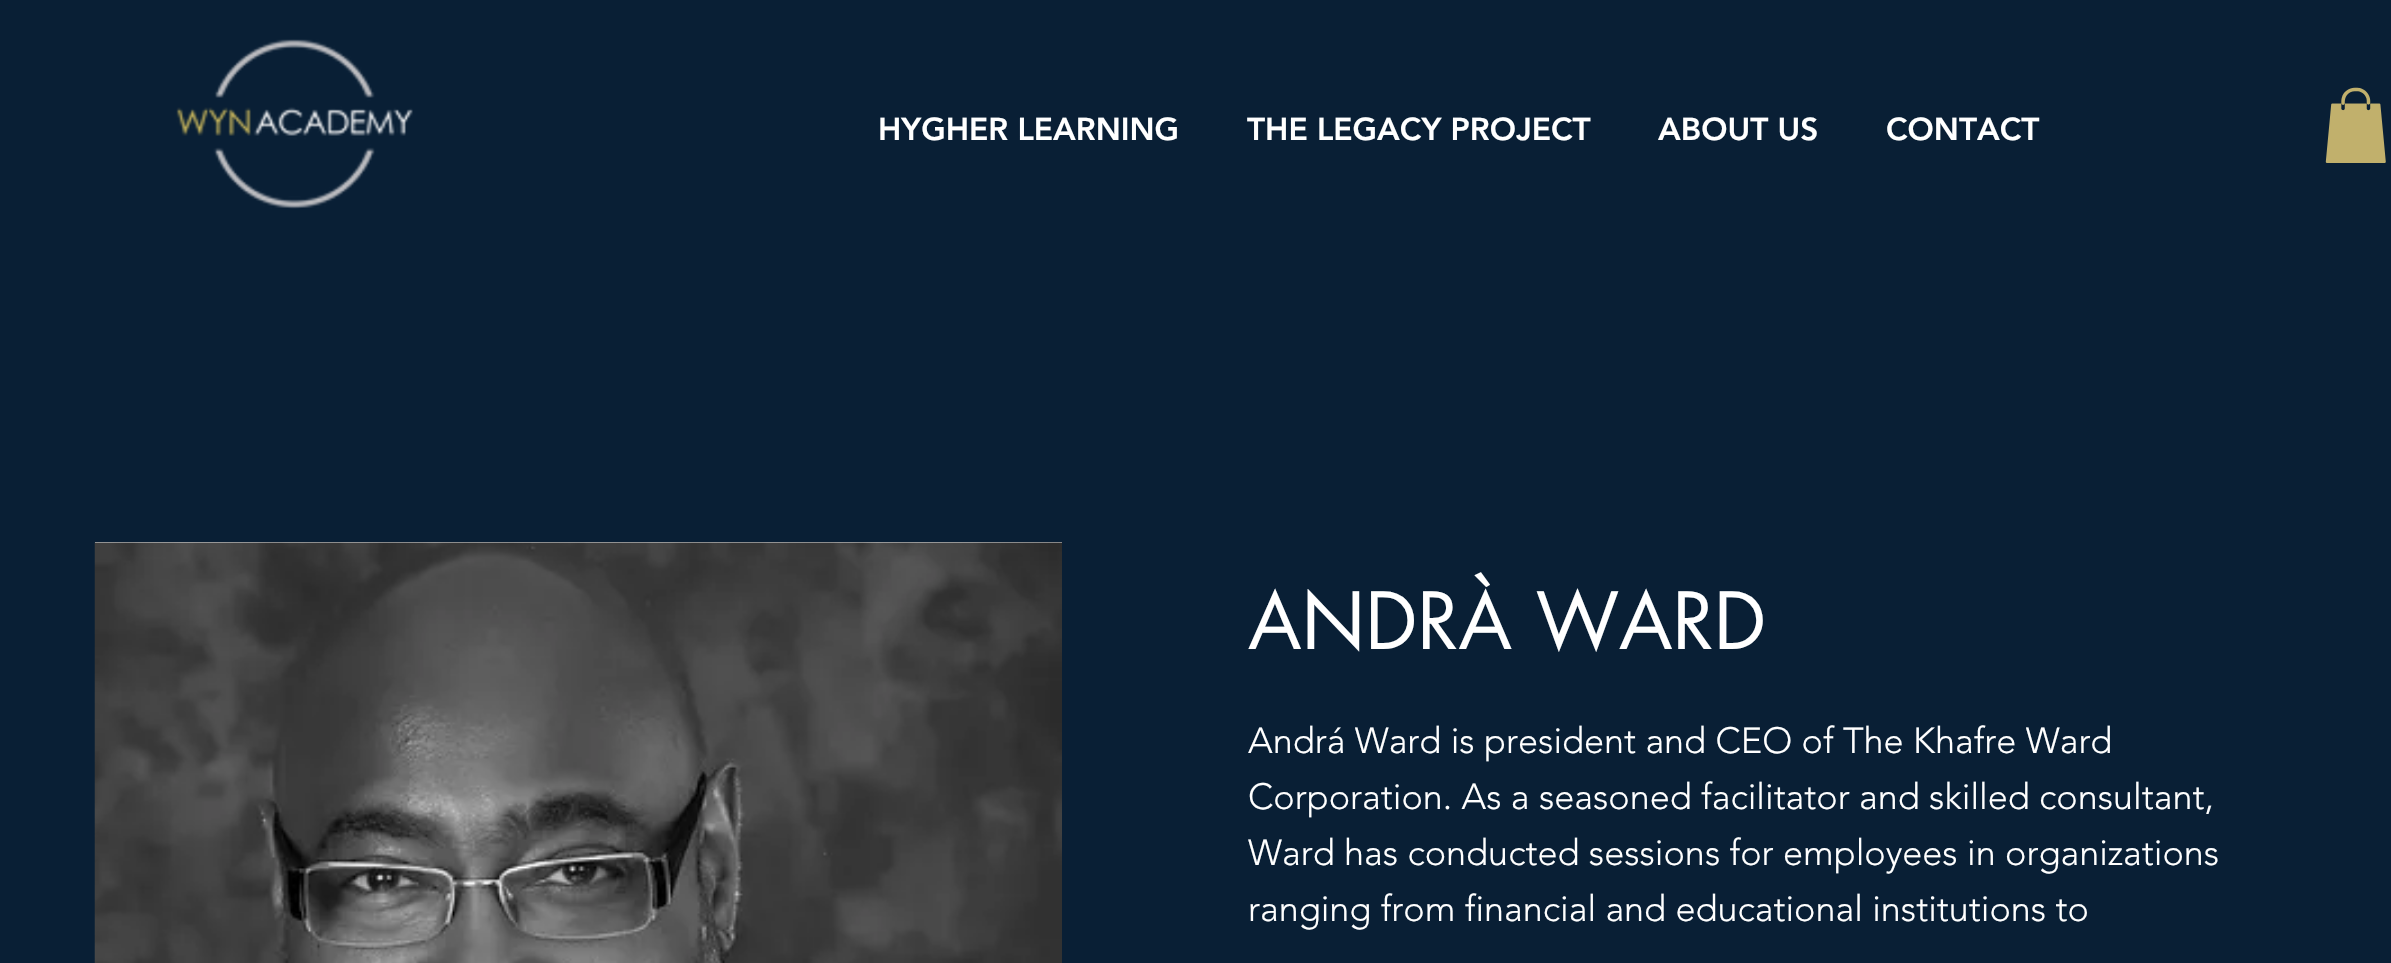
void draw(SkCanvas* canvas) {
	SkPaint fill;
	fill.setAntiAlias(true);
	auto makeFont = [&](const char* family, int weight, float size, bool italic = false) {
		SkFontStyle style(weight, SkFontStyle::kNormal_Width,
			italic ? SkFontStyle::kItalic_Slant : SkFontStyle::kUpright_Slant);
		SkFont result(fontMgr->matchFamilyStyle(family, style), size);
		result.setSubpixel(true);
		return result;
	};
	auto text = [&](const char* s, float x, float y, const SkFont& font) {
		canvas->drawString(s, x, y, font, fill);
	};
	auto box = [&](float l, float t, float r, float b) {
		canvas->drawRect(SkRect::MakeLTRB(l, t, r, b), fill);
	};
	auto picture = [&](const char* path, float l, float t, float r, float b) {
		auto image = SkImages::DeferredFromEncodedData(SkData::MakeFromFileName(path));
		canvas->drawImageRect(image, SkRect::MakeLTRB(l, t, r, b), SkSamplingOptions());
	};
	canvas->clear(0xFF091F35);
	picture("image0.png", 176, 39, 413, 209);
	picture("image1.png", 2325, 87, 2386, 163);
	fill.setColor(0xFFFFFFFF);
	box(95, 542, 1062, 543);
	picture("image2.png", 94, 542, 1062, 963);
	auto font1 = makeFont("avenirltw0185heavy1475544", 900, 31.5f);
	text("HYGHER LEARNING", 878, 140, font1);
	text("THE LEGACY PROJECT", 1247, 140, font1);
	text("ABOUT US", 1658, 140, font1);
	text("CONTACT", 1886, 140, font1);
	auto font2 = makeFont("futura", 400, 76.5f);
	text("ANDRÀ WARD", 1248, 649, font2);
	auto font3 = makeFont("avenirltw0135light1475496", 300, 36);
	text("Andrá Ward is president and CEO of The Khafre Ward", 1248, 753, font3);
	text("Corporation. As a seasoned facilitator and skilled consultant,", 1248, 809, font3);
	text("Ward has conducted sessions for employees in organizations", 1248, 865, font3);
	text("ranging from financial and educational institutions to", 1248, 921, font3);
}
